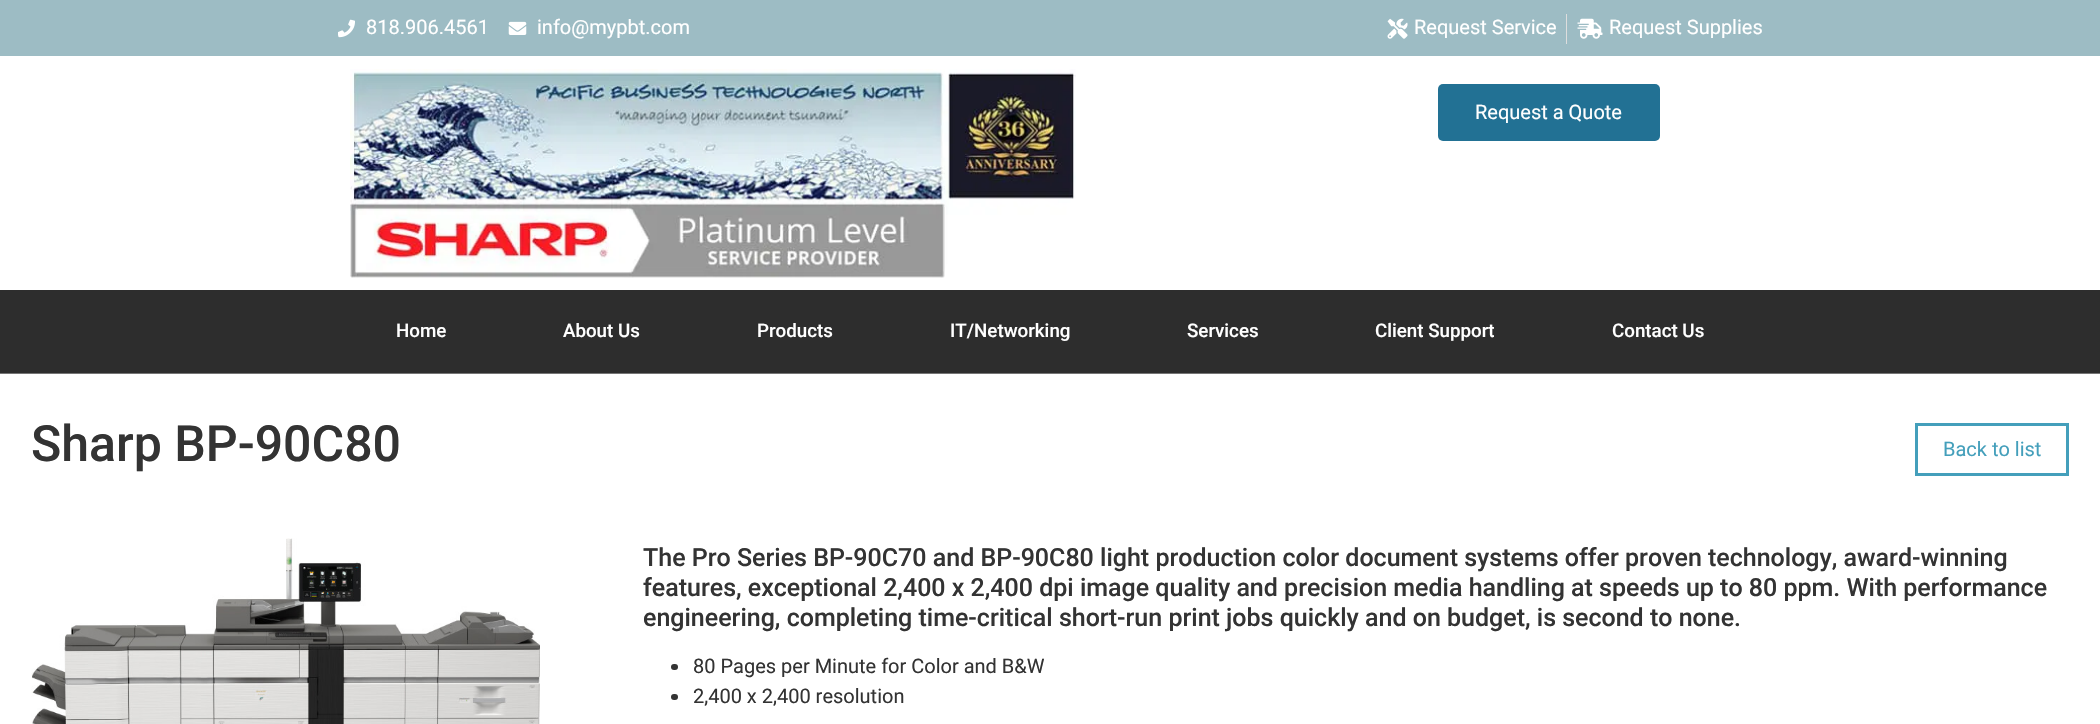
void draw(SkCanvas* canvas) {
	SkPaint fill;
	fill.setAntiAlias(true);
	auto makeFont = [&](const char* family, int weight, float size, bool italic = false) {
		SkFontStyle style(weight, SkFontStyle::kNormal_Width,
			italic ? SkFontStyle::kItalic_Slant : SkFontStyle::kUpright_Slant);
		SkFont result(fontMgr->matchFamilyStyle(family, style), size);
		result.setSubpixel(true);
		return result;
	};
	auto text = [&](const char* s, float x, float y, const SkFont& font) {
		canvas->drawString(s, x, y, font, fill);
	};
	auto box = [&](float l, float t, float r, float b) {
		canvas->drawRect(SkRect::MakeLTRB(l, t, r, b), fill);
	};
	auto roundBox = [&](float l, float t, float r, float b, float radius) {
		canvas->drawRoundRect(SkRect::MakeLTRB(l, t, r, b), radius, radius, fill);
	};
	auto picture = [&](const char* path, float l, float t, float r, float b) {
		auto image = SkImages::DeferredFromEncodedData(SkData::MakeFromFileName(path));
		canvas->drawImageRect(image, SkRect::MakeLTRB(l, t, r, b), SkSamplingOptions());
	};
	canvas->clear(0xFFFFFFFF);
	fill.setColor(0xFF9DBCC4);
	box(0, 0, 2100, 56);
	picture("image0.png", 338, 19, 355, 38);
	picture("image1.png", 508, 21, 527, 35);
	picture("image2.png", 1387, 18, 1408, 39);
	fill.setColor(0xFFDDDDDD);
	box(1566, 14, 1567, 44);
	picture("image3.png", 1577, 18, 1603, 39);
	picture("image4.png", 350, 69, 1076, 278);
	fill.setColor(0xFF227194);
	roundBox(1438, 84, 1660, 141, 5);
	fill.setColor(0xFF2D2D2D);
	box(0, 290, 2100, 373);
	fill.setColor(0xFF757575);
	box(0, 373, 2100, 374);
	fill.setStyle(SkPaint::kStroke_Style);
	fill.setStrokeWidth(3);
	fill.setColor(0xFF449FBB);
	canvas->drawRect(SkRect::MakeLTRB(1916.5f, 424.5f, 2067.5f, 474.5f), fill);
	picture("image5.png", 31, 538, 540, 724);
	fill.setStyle(SkPaint::kFill_Style);
	fill.setColor(0xFF333333);
	roundBox(671, 664, 678, 670, 3);
	roundBox(671, 694, 678, 700, 3);
	auto font1 = makeFont("Roboto", 400, 20);
	fill.setColor(0xFFFFFFFF);
	text("818.906.4561", 366, 34, font1);
	text("info@mypbt.com", 537, 34, font1);
	text("Request Service", 1414, 34, font1);
	text("Request Supplies", 1609, 34, font1);
	text("Request a Quote", 1475, 119, font1);
	auto font2 = makeFont("Roboto", 500, 18.75f);
	text("Home", 396, 337, font2);
	text("About Us", 563, 337, font2);
	text("Products", 757, 337, font2);
	text("IT/Networking", 950, 337, font2);
	text("Services", 1187, 337, font2);
	text("Client Support", 1375, 337, font2);
	text("Contact Us", 1612, 337, font2);
	auto font3 = makeFont("Roboto", 500, 50);
	fill.setColor(0xFF333333);
	text("Sharp BP-90C80", 31, 461, font3);
	fill.setColor(0xFF449FBB);
	text("Back to list", 1943, 456, font1);
	auto font4 = makeFont("Roboto", 500, 25);
	fill.setColor(0xFF333333);
	text("The Pro Series BP-90C70 and BP-90C80 light production color document systems offer proven technology, award-winning", 643, 566, font4);
	text("features, exceptional 2,400 x 2,400 dpi image quality and precision media handling at speeds up to 80 ppm. With performance", 643, 596, font4);
	text("engineering, completing time-critical short-run print jobs quickly and on budget, is second to none.", 643, 626, font4);
	text("80 Pages per Minute for Color and B&W", 693, 673, font1);
	text("2,400 x 2,400 resolution", 693, 703, font1);
}
